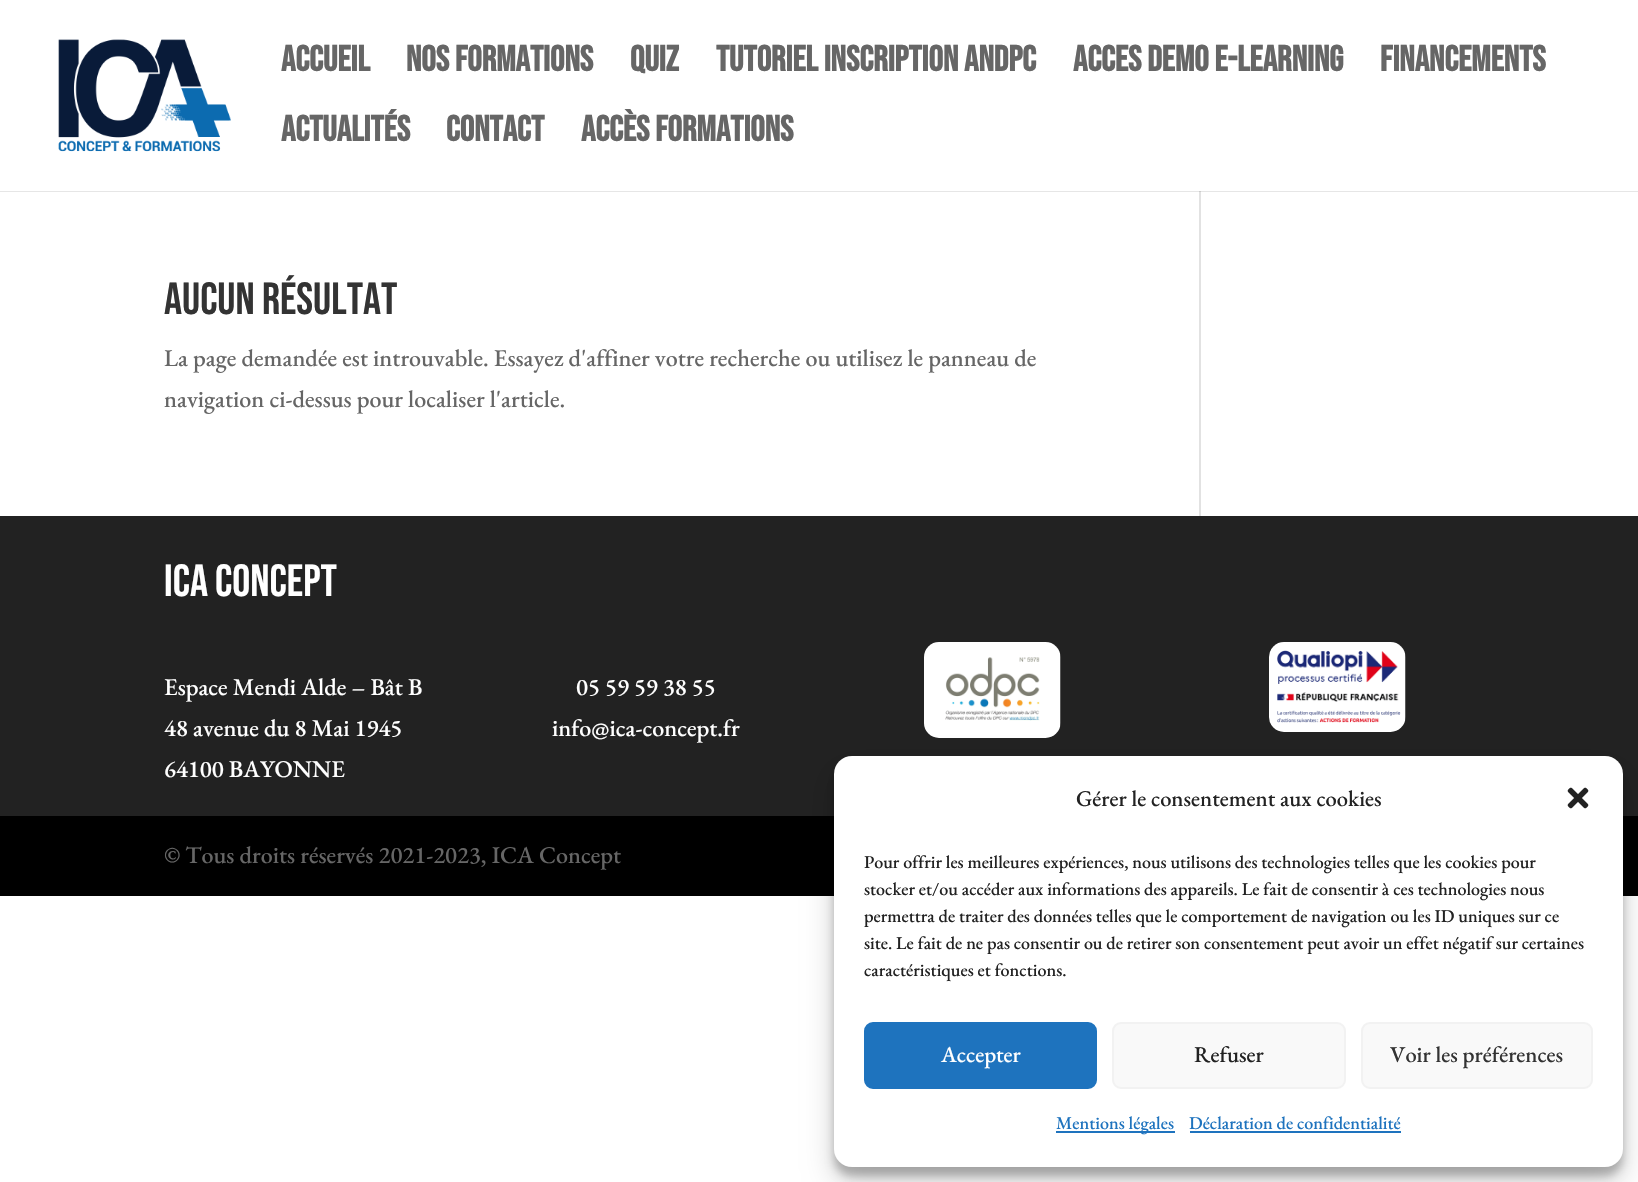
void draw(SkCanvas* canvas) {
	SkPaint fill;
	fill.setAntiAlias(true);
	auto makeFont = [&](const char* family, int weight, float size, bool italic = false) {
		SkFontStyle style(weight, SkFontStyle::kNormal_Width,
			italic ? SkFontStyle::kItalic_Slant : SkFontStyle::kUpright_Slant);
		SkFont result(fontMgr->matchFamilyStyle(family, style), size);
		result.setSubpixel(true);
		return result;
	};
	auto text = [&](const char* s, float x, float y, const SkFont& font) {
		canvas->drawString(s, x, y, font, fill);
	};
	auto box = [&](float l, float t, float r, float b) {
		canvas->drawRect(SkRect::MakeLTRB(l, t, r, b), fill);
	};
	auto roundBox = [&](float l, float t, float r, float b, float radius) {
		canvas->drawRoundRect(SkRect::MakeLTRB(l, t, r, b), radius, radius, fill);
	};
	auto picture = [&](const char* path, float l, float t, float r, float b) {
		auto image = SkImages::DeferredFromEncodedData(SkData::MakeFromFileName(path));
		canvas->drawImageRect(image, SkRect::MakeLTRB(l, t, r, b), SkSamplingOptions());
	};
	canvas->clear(0xFFFFFFFF);
	fill.setColor(0xFFE6E6E6);
	box(0, 191, 1638, 192);
	picture("image0.png", 58, 39, 231, 152);
	fill.setColor(0xFFE2E2E2);
	box(1199, 191, 1201, 516);
	fill.setColor(0xFFCBCBCB);
	box(1199, 191, 1201, 192);
	fill.setColor(0xFF222222);
	box(0, 516, 1638, 816);
	picture("image1.png", 924, 642, 1061, 738);
	picture("image2.png", 1269, 642, 1406, 732);
	fill.setColor(0xFF000000);
	box(0, 816, 1638, 896);
	fill.setColor(0x3B000000);
	fill.setMaskFilter(SkMaskFilter::MakeBlur(kNormal_SkBlurStyle, 4.5f));
	canvas->drawRoundRect(SkRect::MakeLTRB(834, 765, 1623, 1176), 18, 18, fill);
	fill.setMaskFilter(nullptr);
	fill.setColor(0x30000000);
	fill.setMaskFilter(SkMaskFilter::MakeBlur(kNormal_SkBlurStyle, 15));
	canvas->drawRoundRect(SkRect::MakeLTRB(834, 771, 1623, 1182), 18, 18, fill);
	fill.setMaskFilter(nullptr);
	fill.setColor(0xFFFFFFFF);
	roundBox(834, 756, 1623, 1167, 18);
	picture("image3.png", 1567, 787, 1589, 809);
	fill.setColor(0xFF1E73BE);
	canvas->drawRoundRect(SkRect::MakeLTRB(865, 1023, 1096, 1088), 8, 8, fill);
	fill.setStyle(SkPaint::kStroke_Style);
	fill.setStrokeWidth(2);
	canvas->drawRoundRect(SkRect::MakeLTRB(865, 1023, 1096, 1088), 8, 8, fill);
	fill.setStyle(SkPaint::kFill_Style);
	fill.setColor(0xFFF9F9F9);
	canvas->drawRoundRect(SkRect::MakeLTRB(1113, 1023, 1345, 1088), 8, 8, fill);
	fill.setStyle(SkPaint::kStroke_Style);
	fill.setColor(0xFFF2F2F2);
	canvas->drawRoundRect(SkRect::MakeLTRB(1113, 1023, 1345, 1088), 8, 8, fill);
	fill.setStyle(SkPaint::kFill_Style);
	fill.setColor(0xFFF9F9F9);
	canvas->drawRoundRect(SkRect::MakeLTRB(1362, 1023, 1592, 1088), 8, 8, fill);
	fill.setStyle(SkPaint::kStroke_Style);
	fill.setColor(0xFFF2F2F2);
	canvas->drawRoundRect(SkRect::MakeLTRB(1362, 1023, 1592, 1088), 8, 8, fill);
	fill.setStyle(SkPaint::kFill_Style);
	fill.setColor(0xFF1E73BE);
	box(1056, 1131, 1175, 1133);
	box(1190, 1131, 1401, 1133);
	auto font1 = makeFont("Bebas Neue", 700, 36);
	fill.setColor(0xFF666666);
	text("Accueil", 281, 71, font1);
	text("NOS FORMATIONS", 406, 71, font1);
	text("quiz", 630, 71, font1);
	text("TUTORIEL INSCRIPTION ANDPC", 716, 71, font1);
	text("ACCES DEMO E-LEARNING", 1073, 71, font1);
	text("Financements", 1380, 71, font1);
	text("Actualités", 281, 141, font1);
	text("Contact", 446, 141, font1);
	text("Accès Formations", 581, 141, font1);
	auto font2 = makeFont("Bebas Neue", 400, 45);
	fill.setColor(0xFF333333);
	text("Aucun résultat", 164, 314, font2);
	auto font3 = makeFont("EB Garamond", 500, 24);
	fill.setColor(0xFF666666);
	text("La page demandée est introuvable. Essayez d'affiner votre recherche ou utilisez le panneau de", 164, 366, font3);
	text("navigation ci-dessus pour localiser l'article.", 164, 407, font3);
	fill.setColor(0xFFFFFFFF);
	text("ICA Concept", 164, 596, font2);
	text("Espace Mendi Alde – Bât B", 164, 695, font3);
	text("48 avenue du 8 Mai 1945", 164, 736, font3);
	text("64100 BAYONNE", 164, 777, font3);
	text("05 59 59 38 55", 576, 695, font3);
	text("info@ica-concept.fr", 552, 736, font3);
	fill.setColor(0xFF666666);
	text("© Tous droits réservés 2021-2023, ICA Concept", 164, 863, font3);
	auto font4 = makeFont("EB Garamond", 500, 22.5f);
	fill.setColor(0xFF222222);
	text("Gérer le consentement aux cookies", 1076, 806, font4);
	auto font5 = makeFont("EB Garamond", 500, 18);
	text("Pour offrir les meilleures expériences, nous utilisons des technologies telles que les cookies pour", 864, 868, font5);
	text("stocker et/ou accéder aux informations des appareils. Le fait de consentir à ces technologies nous", 864, 895, font5);
	text("permettra de traiter des données telles que le comportement de navigation ou les ID uniques sur ce", 864, 922, font5);
	text("site. Le fait de ne pas consentir ou de retirer son consentement peut avoir un effet négatif sur certaines", 864, 949, font5);
	text("caractéristiques et fonctions.", 864, 976, font5);
	fill.setColor(0xFFFFFFFF);
	text("Accepter", 941, 1062, font4);
	fill.setColor(0xFF222222);
	text("Refuser", 1194, 1062, font4);
	fill.setColor(0xFF333333);
	text("Voir les préférences", 1390, 1062, font4);
	fill.setColor(0xFF1E73BE);
	text("Mentions légales", 1056, 1129, font5);
	text("Déclaration de confidentialité", 1189, 1129, font5);
}
